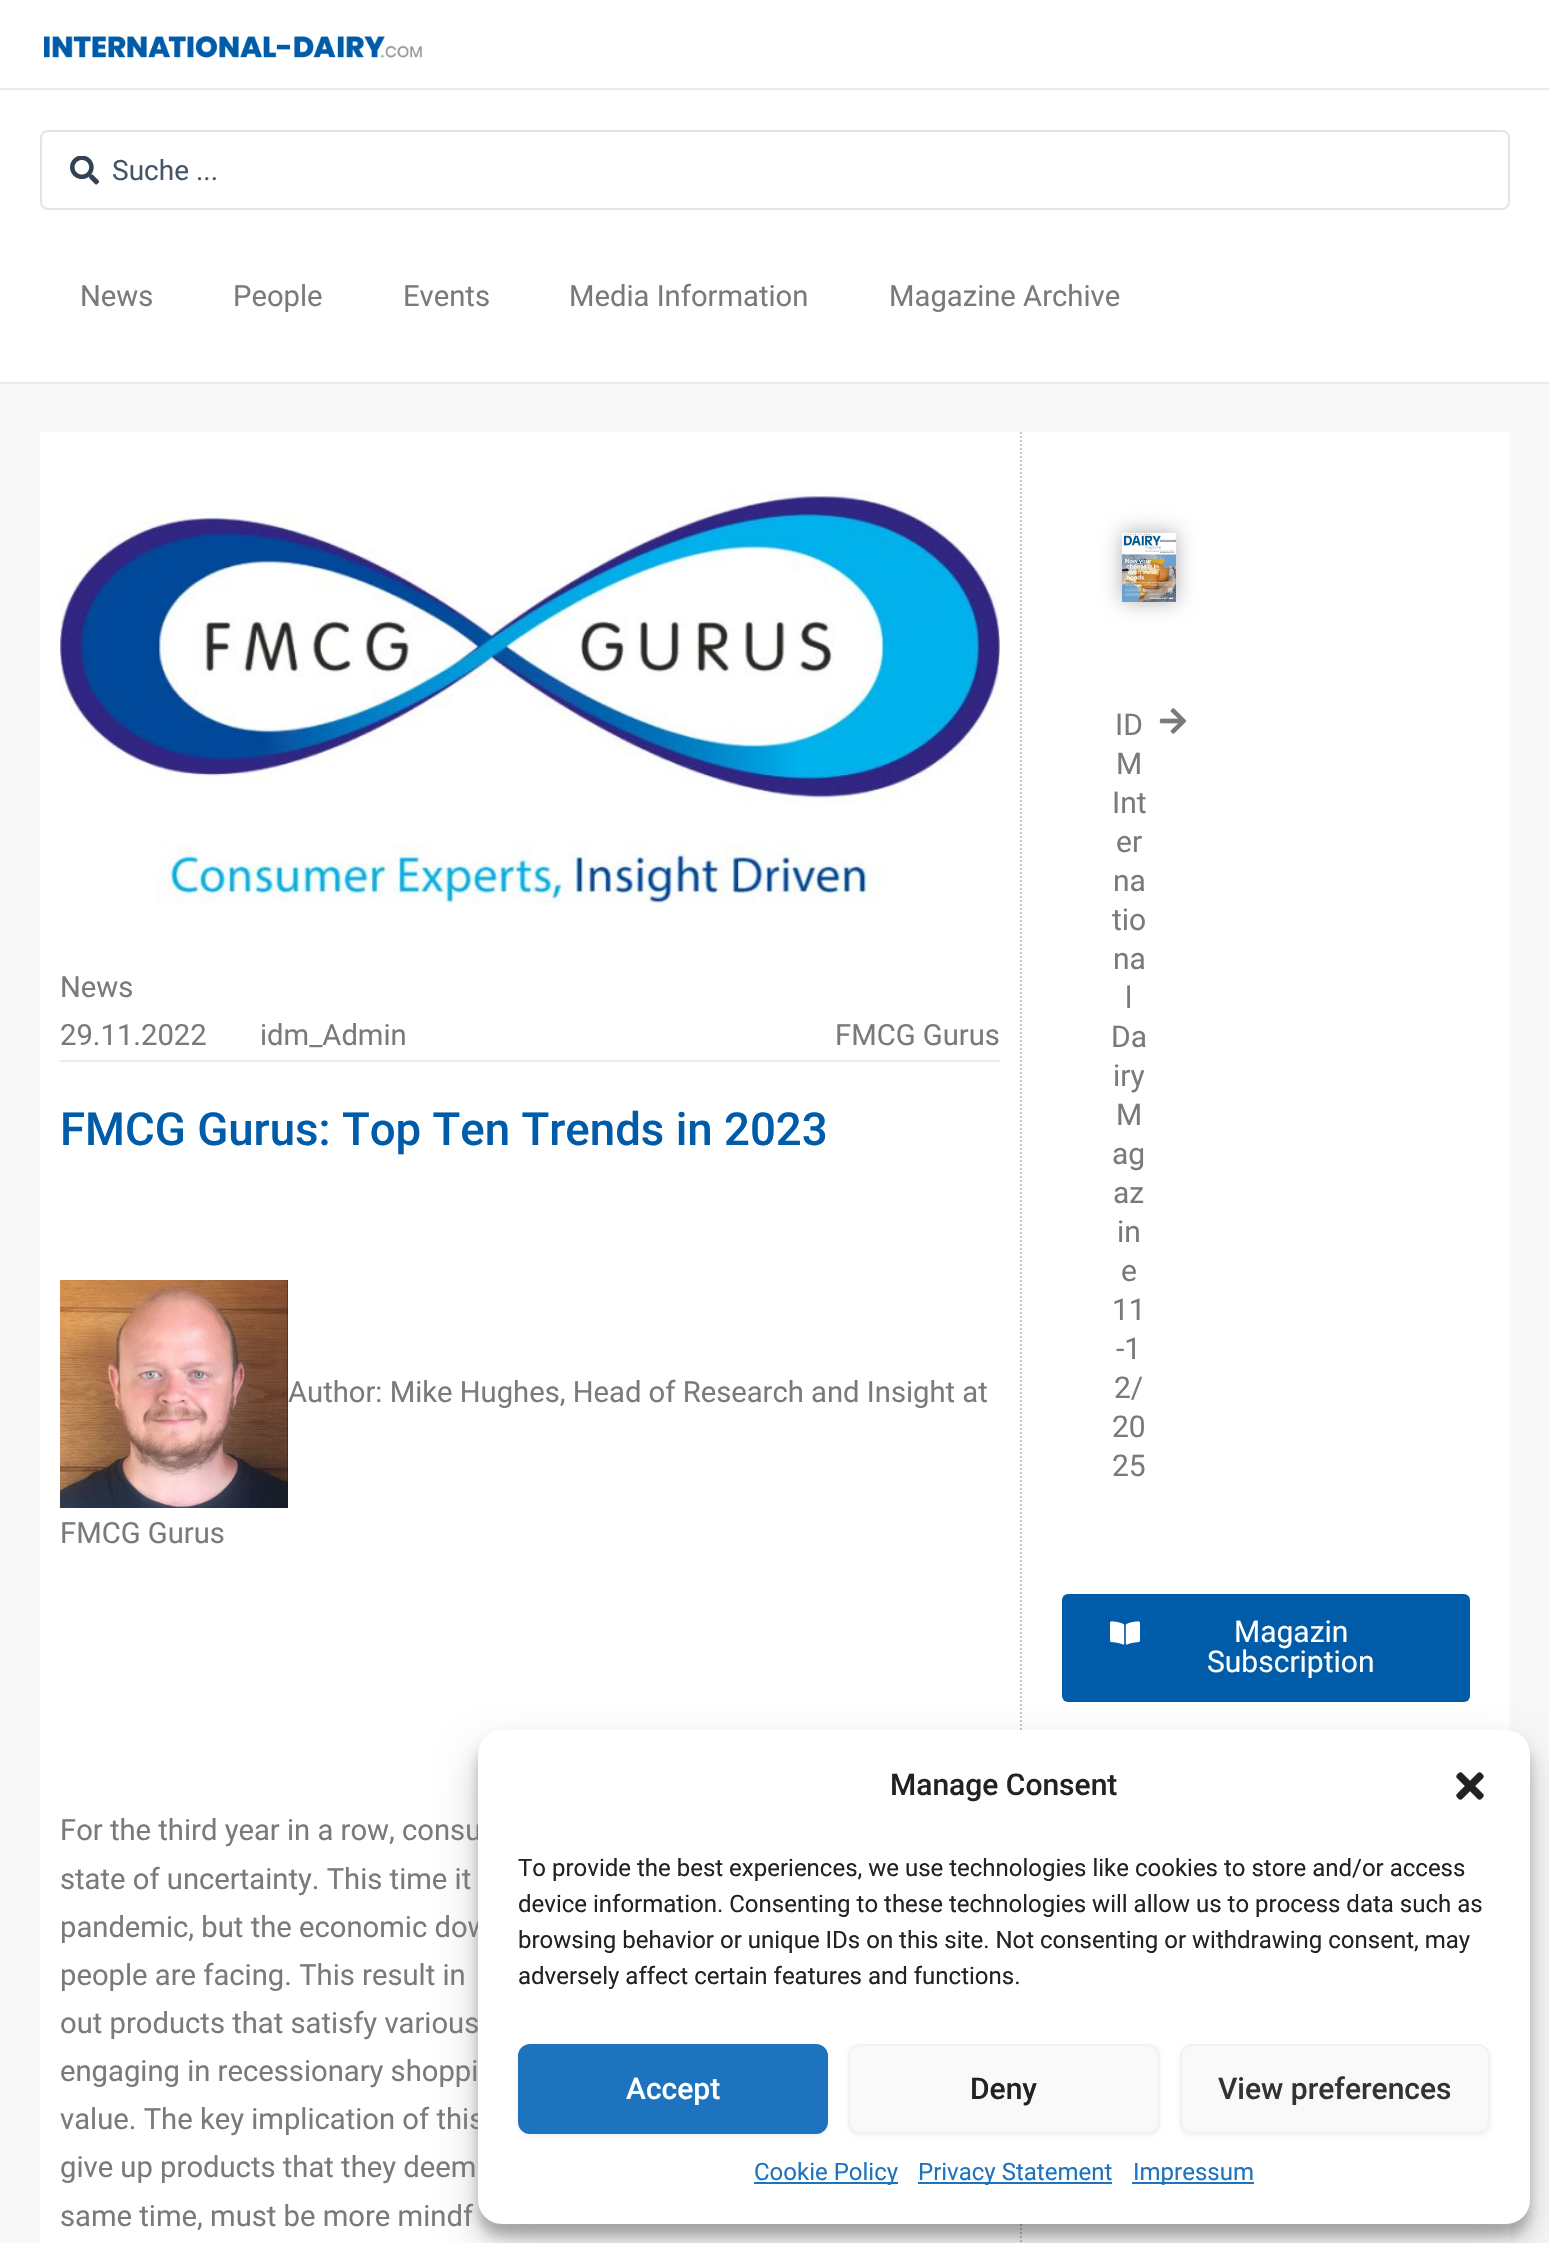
void draw(SkCanvas* canvas) {
	SkPaint fill;
	fill.setAntiAlias(true);
	auto makeFont = [&](const char* family, int weight, float size, bool italic = false) {
		SkFontStyle style(weight, SkFontStyle::kNormal_Width,
			italic ? SkFontStyle::kItalic_Slant : SkFontStyle::kUpright_Slant);
		SkFont result(fontMgr->matchFamilyStyle(family, style), size);
		result.setSubpixel(true);
		return result;
	};
	auto text = [&](const char* s, float x, float y, const SkFont& font) {
		canvas->drawString(s, x, y, font, fill);
	};
	auto box = [&](float l, float t, float r, float b) {
		canvas->drawRect(SkRect::MakeLTRB(l, t, r, b), fill);
	};
	auto roundBox = [&](float l, float t, float r, float b, float radius) {
		canvas->drawRoundRect(SkRect::MakeLTRB(l, t, r, b), radius, radius, fill);
	};
	auto picture = [&](const char* path, float l, float t, float r, float b) {
		auto image = SkImages::DeferredFromEncodedData(SkData::MakeFromFileName(path));
		canvas->drawImageRect(image, SkRect::MakeLTRB(l, t, r, b), SkSamplingOptions());
	};
	canvas->clear(0xFFF8F8F8);
	fill.setColor(0xFFFFFFFF);
	box(0, 0, 1549, 88);
	fill.setColor(0xFFEBEBEB);
	box(0, 88, 1549, 90);
	picture("image0.png", 44, 36, 423, 58);
	fill.setColor(0xFFFFFFFF);
	box(0, 90, 1549, 382);
	fill.setColor(0xFFEBEBEB);
	box(0, 382, 1549, 384);
	fill.setStyle(SkPaint::kStroke_Style);
	fill.setStrokeWidth(2);
	fill.setColor(0xFFE1E5EB);
	canvas->drawRoundRect(SkRect::MakeLTRB(41, 131, 1509, 209), 7, 7, fill);
	picture("image1.png", 70, 156, 100, 185);
	fill.setStyle(SkPaint::kFill_Style);
	fill.setColor(0xFFFFFFFF);
	box(40, 432, 1510, 2243);
	picture("image2.png", 60, 491, 1000, 904);
	fill.setColor(0xFFEBEBEB);
	box(60, 1060, 1000, 1062);
	picture("image3.png", 60, 1280, 288, 1508);
	fill.setStyle(SkPaint::kStroke_Style);
	fill.setColor(0xFFC5C5C5);
	fill.setPathEffect(SkDashPathEffect::Make({{2, 2}}, 0));
	canvas->drawPath(SkPathBuilder().moveTo(1021, 432).lineTo(1021, 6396).detach(), fill);
	fill.setPathEffect(nullptr);
	fill.setStyle(SkPaint::kFill_Style);
	fill.setColor(0x4D000000);
	fill.setMaskFilter(SkMaskFilter::MakeBlur(kNormal_SkBlurStyle, 10));
	canvas->drawRect(SkRect::MakeLTRB(1122, 532, 1176, 602), fill);
	fill.setMaskFilter(nullptr);
	picture("image4.png", 1122, 533, 1176, 602);
	picture("image5.png", 1159, 708, 1187, 734);
	fill.setColor(0xFF005CA9);
	roundBox(1062, 1594, 1470, 1702, 6);
	picture("image6.png", 1110, 1621, 1140, 1645);
	fill.setColor(0x3B000000);
	fill.setMaskFilter(SkMaskFilter::MakeBlur(kNormal_SkBlurStyle, 6));
	canvas->drawRoundRect(SkRect::MakeLTRB(478, 1742, 1530, 2236), 24, 24, fill);
	fill.setMaskFilter(nullptr);
	fill.setColor(0x30000000);
	fill.setMaskFilter(SkMaskFilter::MakeBlur(kNormal_SkBlurStyle, 20));
	canvas->drawRoundRect(SkRect::MakeLTRB(478, 1750, 1530, 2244), 24, 24, fill);
	fill.setMaskFilter(nullptr);
	auto font1 = makeFont("Roboto", 400, 28);
	fill.setColor(0xFF475569);
	text("Suche ...", 112, 180, font1);
	auto font2 = makeFont("Roboto", 400, 29.2f);
	fill.setColor(0xFF7A7A7A);
	text("News", 80, 306, font2);
	text("People", 233, 306, font2);
	text("Events", 403, 306, font2);
	text("Media Information", 569, 306, font2);
	text("Magazine Archive", 889, 306, font2);
	text("News", 60, 997, font2);
	text("29.11.2022", 60, 1045, font2);
	text("idm_Admin", 260, 1045, font2);
	text("FMCG Gurus", 835, 1045, font2);
	auto font3 = makeFont("Roboto", 500, 45.6f);
	fill.setColor(0xFF005CA9);
	text("FMCG Gurus: Top Ten Trends in 2023", 60, 1145, font3);
	fill.setColor(0xFF7A7A7A);
	text("Author: Mike Hughes, Head of Research and Insight at", 288, 1402, font2);
	text("FMCG Gurus", 60, 1543, font2);
	text("For the third year in a row, consu", 60, 1840, font2);
	text("state of uncertainty. This time it", 60, 1889, font2);
	text("pandemic, but the economic dow", 60, 1937, font2);
	text("people are facing. This result in", 60, 1985, font2);
	text("out products that satisfy various", 60, 2033, font2);
	text("engaging in recessionary shoppi", 60, 2081, font2);
	text("value. The key implication of this", 60, 2129, font2);
	text("give up products that they deem", 60, 2177, font2);
	text("same time, must be more mindf", 60, 2226, font2);
	auto font4 = makeFont("Roboto", 400, 30);
	text("ID", 1115, 735, font4);
	text("M", 1116, 774, font4);
	text("Int", 1112, 813, font4);
	text("er", 1116, 852, font4);
	text("na", 1113, 891, font4);
	text("tio", 1112, 930, font4);
	text("na", 1113, 969, font4);
	text("l", 1125, 1008, font4);
	text("Da", 1111, 1047, font4);
	text("iry", 1113, 1086, font4);
	text("M", 1116, 1125, font4);
	text("ag", 1112, 1164, font4);
	text("az", 1113, 1203, font4);
	text("in", 1117, 1242, font4);
	text("e", 1121, 1281, font4);
	text("11", 1112, 1320, font4);
	text("-1", 1116, 1359, font4);
	text("2/", 1114, 1398, font4);
	text("20", 1112, 1437, font4);
	text("25", 1112, 1476, font4);
	fill.setColor(0xFFFFFFFF);
	text("Magazin", 1234, 1642, font4);
	text("Subscription", 1207, 1672, font4);
	roundBox(478, 1730, 1530, 2224, 24);
	auto font5 = makeFont("Roboto", 500, 30);
	fill.setColor(0xFF222222);
	text("Manage Consent", 890, 1795, font5);
	picture("image7.png", 1456, 1772, 1484, 1800);
	auto font6 = makeFont("Roboto", 400, 24);
	text("To provide the best experiences, we use technologies like cookies to store and/or access", 518, 1876, font6);
	text("device information. Consenting to these technologies will allow us to process data such as", 518, 1912, font6);
	text("browsing behavior or unique IDs on this site. Not consenting or withdrawing consent, may", 518, 1948, font6);
	text("adversely affect certain features and functions.", 518, 1984, font6);
	fill.setColor(0x0D000000);
	fill.setMaskFilter(SkMaskFilter::MakeBlur(kNormal_SkBlurStyle, 2));
	canvas->drawRoundRect(SkRect::MakeLTRB(518, 2046, 828, 2136), 12, 12, fill);
	fill.setMaskFilter(nullptr);
	fill.setColor(0xFF1E73BE);
	canvas->drawRoundRect(SkRect::MakeLTRB(519, 2045, 827, 2133), 11, 11, fill);
	fill.setStyle(SkPaint::kStroke_Style);
	canvas->drawRoundRect(SkRect::MakeLTRB(519, 2045, 827, 2133), 11, 11, fill);
	fill.setStyle(SkPaint::kFill_Style);
	fill.setColor(0xFFFFFFFF);
	text("Accept", 626, 2099, font5);
	fill.setColor(0x0D000000);
	fill.setMaskFilter(SkMaskFilter::MakeBlur(kNormal_SkBlurStyle, 2));
	canvas->drawRoundRect(SkRect::MakeLTRB(848, 2046, 1160, 2136), 12, 12, fill);
	fill.setMaskFilter(nullptr);
	fill.setColor(0xFFF9F9F9);
	canvas->drawRoundRect(SkRect::MakeLTRB(849, 2045, 1159, 2133), 11, 11, fill);
	fill.setStyle(SkPaint::kStroke_Style);
	fill.setColor(0xFFF2F2F2);
	canvas->drawRoundRect(SkRect::MakeLTRB(849, 2045, 1159, 2133), 11, 11, fill);
	fill.setStyle(SkPaint::kFill_Style);
	fill.setColor(0xFF222222);
	text("Deny", 970, 2099, font5);
	fill.setColor(0x0D000000);
	fill.setMaskFilter(SkMaskFilter::MakeBlur(kNormal_SkBlurStyle, 2));
	canvas->drawRoundRect(SkRect::MakeLTRB(1180, 2046, 1490, 2136), 12, 12, fill);
	fill.setMaskFilter(nullptr);
	fill.setColor(0xFFF9F9F9);
	canvas->drawRoundRect(SkRect::MakeLTRB(1181, 2045, 1489, 2133), 11, 11, fill);
	fill.setStyle(SkPaint::kStroke_Style);
	fill.setColor(0xFFF2F2F2);
	canvas->drawRoundRect(SkRect::MakeLTRB(1181, 2045, 1489, 2133), 11, 11, fill);
	fill.setStyle(SkPaint::kFill_Style);
	fill.setColor(0xFF333333);
	text("View preferences", 1218, 2099, font5);
	fill.setColor(0xFF1E73BE);
	box(754, 2182, 898, 2184);
	text("Cookie Policy", 754, 2180, font6);
	box(918, 2182, 1112, 2184);
	text("Privacy Statement", 918, 2180, font6);
	box(1132, 2182, 1254, 2184);
	text("Impressum", 1133, 2180, font6);
}
